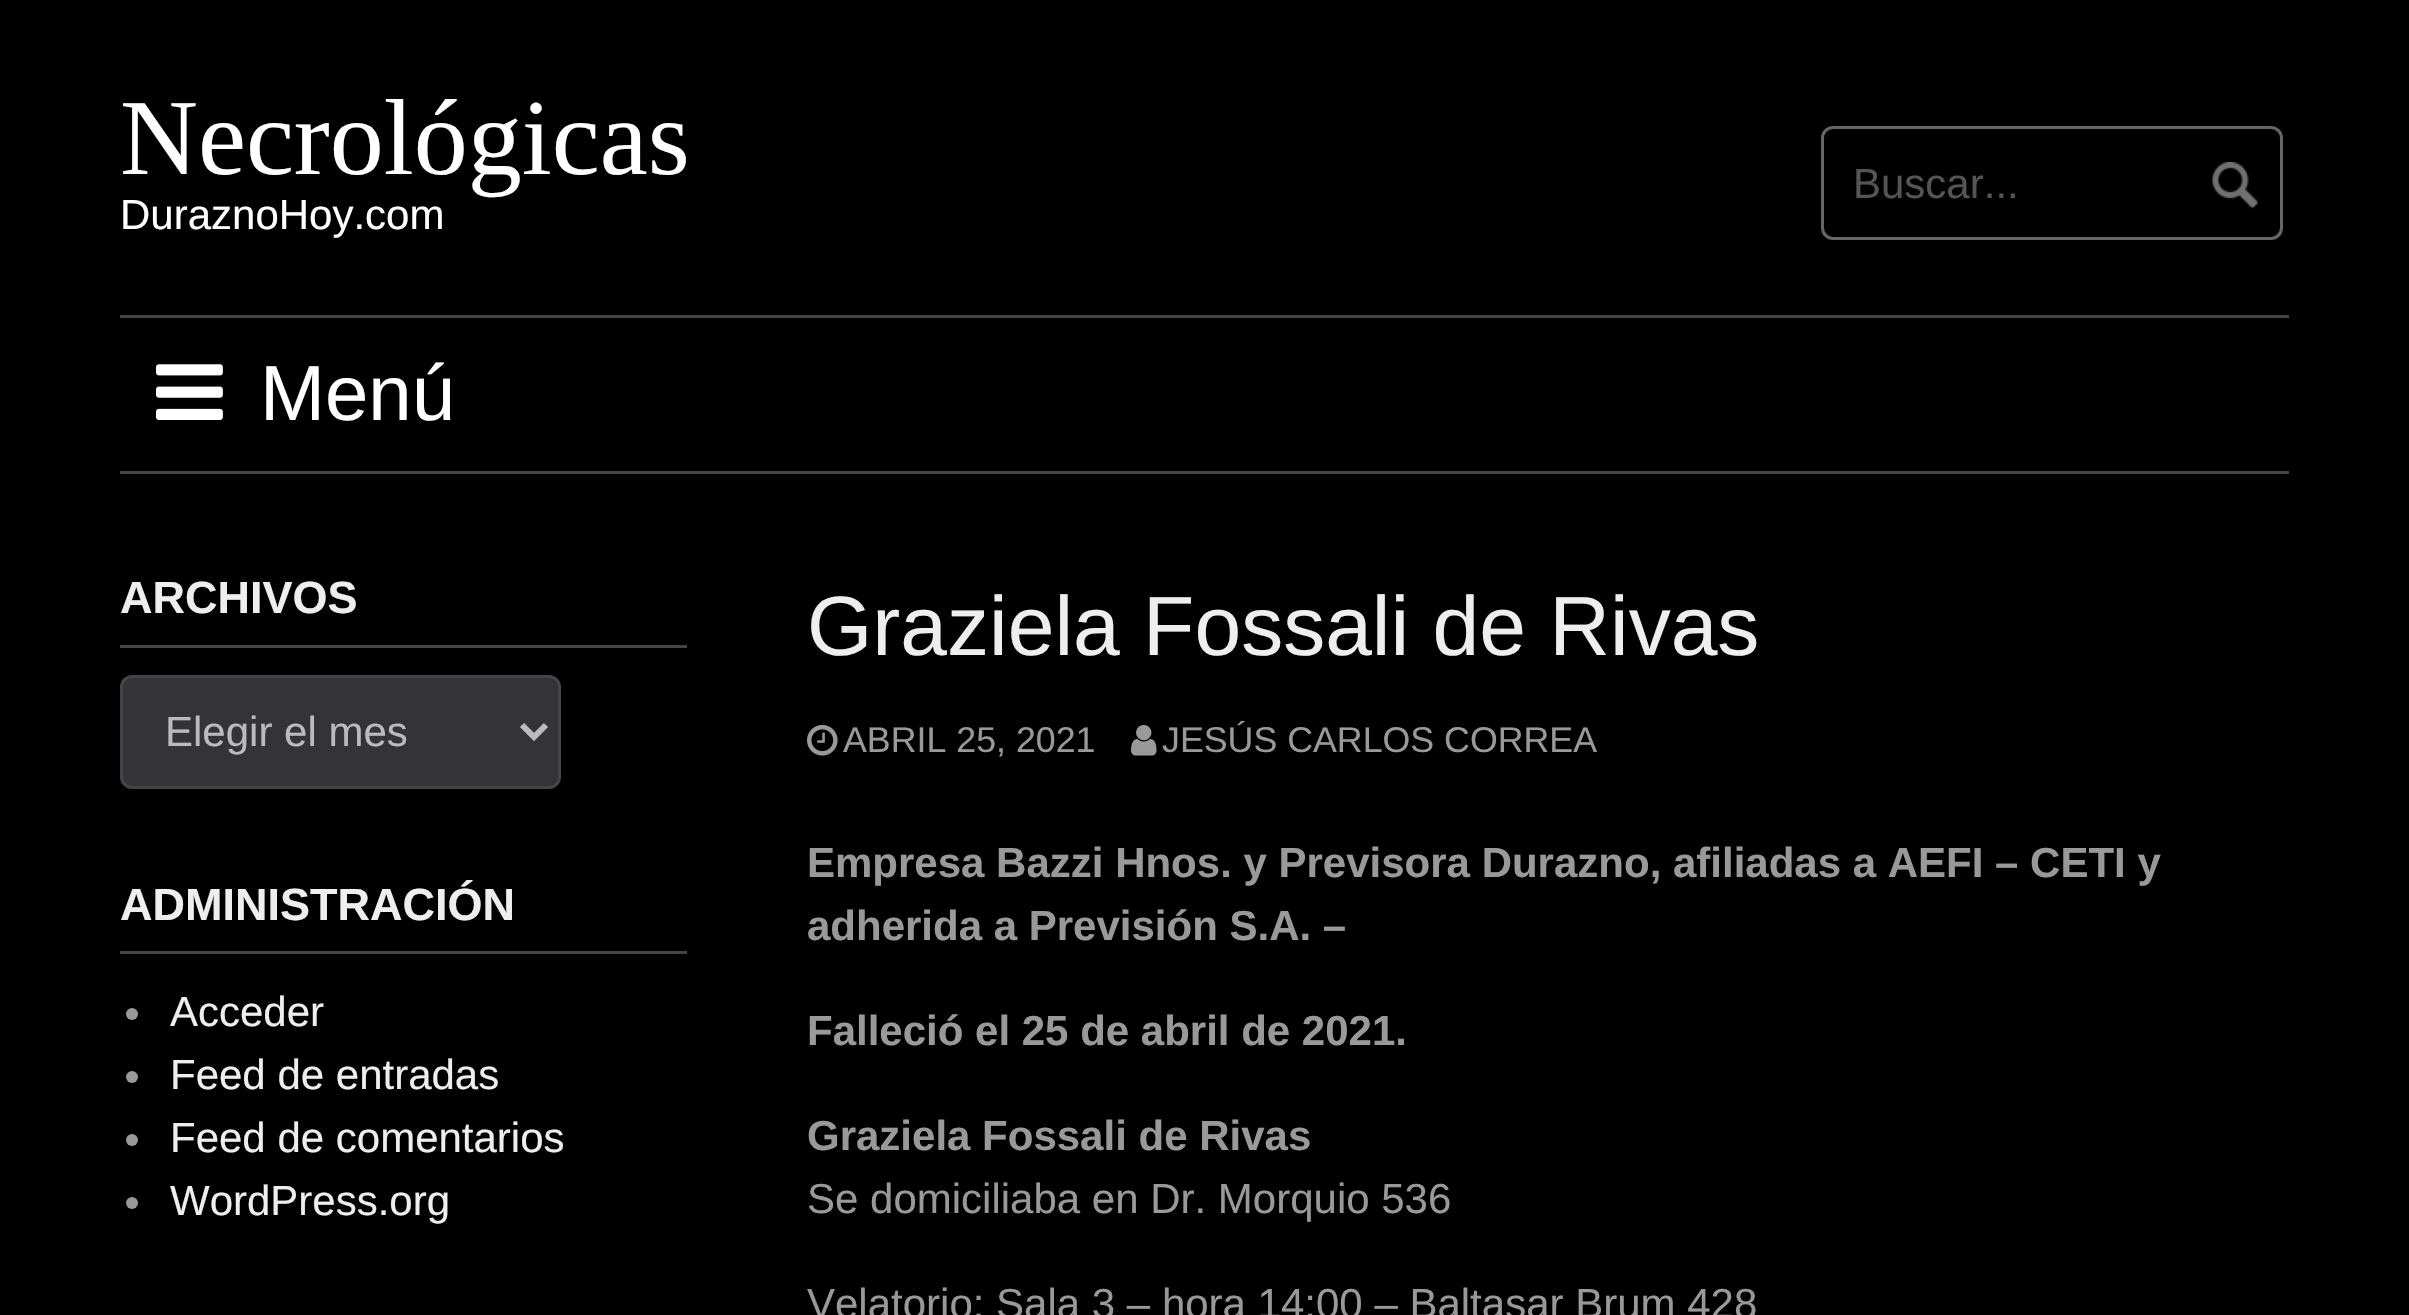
void draw(SkCanvas* canvas) {
	SkPaint fill;
	fill.setAntiAlias(true);
	auto makeFont = [&](const char* family, int weight, float size, bool italic = false) {
		SkFontStyle style(weight, SkFontStyle::kNormal_Width,
			italic ? SkFontStyle::kItalic_Slant : SkFontStyle::kUpright_Slant);
		SkFont result(fontMgr->matchFamilyStyle(family, style), size);
		result.setSubpixel(true);
		return result;
	};
	auto text = [&](const char* s, float x, float y, const SkFont& font) {
		canvas->drawString(s, x, y, font, fill);
	};
	auto box = [&](float l, float t, float r, float b) {
		canvas->drawRect(SkRect::MakeLTRB(l, t, r, b), fill);
	};
	auto picture = [&](const char* path, float l, float t, float r, float b) {
		auto image = SkImages::DeferredFromEncodedData(SkData::MakeFromFileName(path));
		canvas->drawImageRect(image, SkRect::MakeLTRB(l, t, r, b), SkSamplingOptions());
	};
	canvas->clear(0xFF000000);
	fill.setStyle(SkPaint::kStroke_Style);
	fill.setStrokeWidth(3);
	fill.setColor(0xFF666666);
	canvas->drawRoundRect(SkRect::MakeLTRB(1822.5f, 127.5f, 2281.5f, 238.5f), 10.5f, 10.5f, fill);
	picture("image0.png", 2212, 162, 2258, 209);
	fill.setStyle(SkPaint::kFill_Style);
	fill.setColor(0xFF444444);
	box(120, 315, 2289, 318);
	box(120, 471, 2289, 474);
	picture("image1.png", 156, 364, 223, 420);
	box(120, 645, 687, 648);
	fill.setColor(0xFF333338);
	canvas->drawRoundRect(SkRect::MakeLTRB(121.5f, 676.5f, 559.5f, 787.5f), 10.5f, 10.5f, fill);
	fill.setStyle(SkPaint::kStroke_Style);
	fill.setColor(0xFF444449);
	canvas->drawRoundRect(SkRect::MakeLTRB(121.5f, 676.5f, 559.5f, 787.5f), 10.5f, 10.5f, fill);
	fill.setStrokeWidth(6);
	fill.setColor(0xFFBBBBBB);
	canvas->drawPath(SkPathBuilder().moveTo(522, 725).lineTo(534, 737).lineTo(546, 725).detach(), fill);
	fill.setStyle(SkPaint::kFill_Style);
	fill.setColor(0xFF444444);
	box(120, 951, 687, 954);
	fill.setColor(0xFF999999);
	canvas->drawCircle(132, 1014, 6, fill);
	canvas->drawCircle(132, 1077, 6, fill);
	canvas->drawCircle(132, 1140, 6, fill);
	canvas->drawCircle(132, 1203, 6, fill);
	picture("image2.png", 807, 724, 838, 756);
	picture("image3.png", 1131, 724, 1157, 756);
	auto font1 = makeFont("Liberation Serif", 400, 108);
	fill.setColor(0xFFFFFFFF);
	text("Necrológicas", 120, 174, font1);
	auto font2 = makeFont("Liberation Sans", 400, 42);
	text("DuraznoHoy.com", 120, 229, font2);
	fill.setColor(0xFF555555);
	text("Buscar...", 1853, 198, font2);
	auto font3 = makeFont("Liberation Sans", 400, 78);
	fill.setColor(0xFFFFFFFF);
	text("Menú", 260, 420, font3);
	auto font4 = makeFont("Liberation Sans", 700, 45);
	fill.setColor(0xFFEEEEEE);
	text("ARCHIVOS", 120, 613, font4);
	fill.setColor(0xFFBBBBBB);
	text("Elegir el mes", 165, 746, font2);
	fill.setColor(0xFFEEEEEE);
	text("ADMINISTRACIÓN", 120, 920, font4);
	text("Acceder", 170, 1026, font2);
	text("Feed de entradas", 170, 1089, font2);
	text("Feed de comentarios", 170, 1152, font2);
	text("WordPress.org", 170, 1215, font2);
	auto font5 = makeFont("Liberation Sans", 400, 84);
	text("Graziela Fossali de Rivas", 807, 655, font5);
	auto font6 = makeFont("Liberation Sans", 400, 35.75f);
	fill.setColor(0xFF999999);
	text("ABRIL 25, 2021", 843, 752, font6);
	text("JESÚS CARLOS CORREA", 1162, 752, font6);
	auto font7 = makeFont("Liberation Sans", 700, 42);
	text("Empresa Bazzi Hnos. y Previsora Durazno, afiliadas a AEFI – CETI y", 807, 877, font7);
	text("adherida a Previsión S.A. –", 807, 940, font7);
	text("Falleció el 25 de abril de 2021.", 807, 1045, font7);
	text("Graziela Fossali de Rivas", 807, 1150, font7);
	text("Se domiciliaba en Dr. Morquio 536", 807, 1213, font2);
	text("Velatorio: Sala 3 – hora 14:00 – Baltasar Brum 428", 807, 1318, font2);
}
